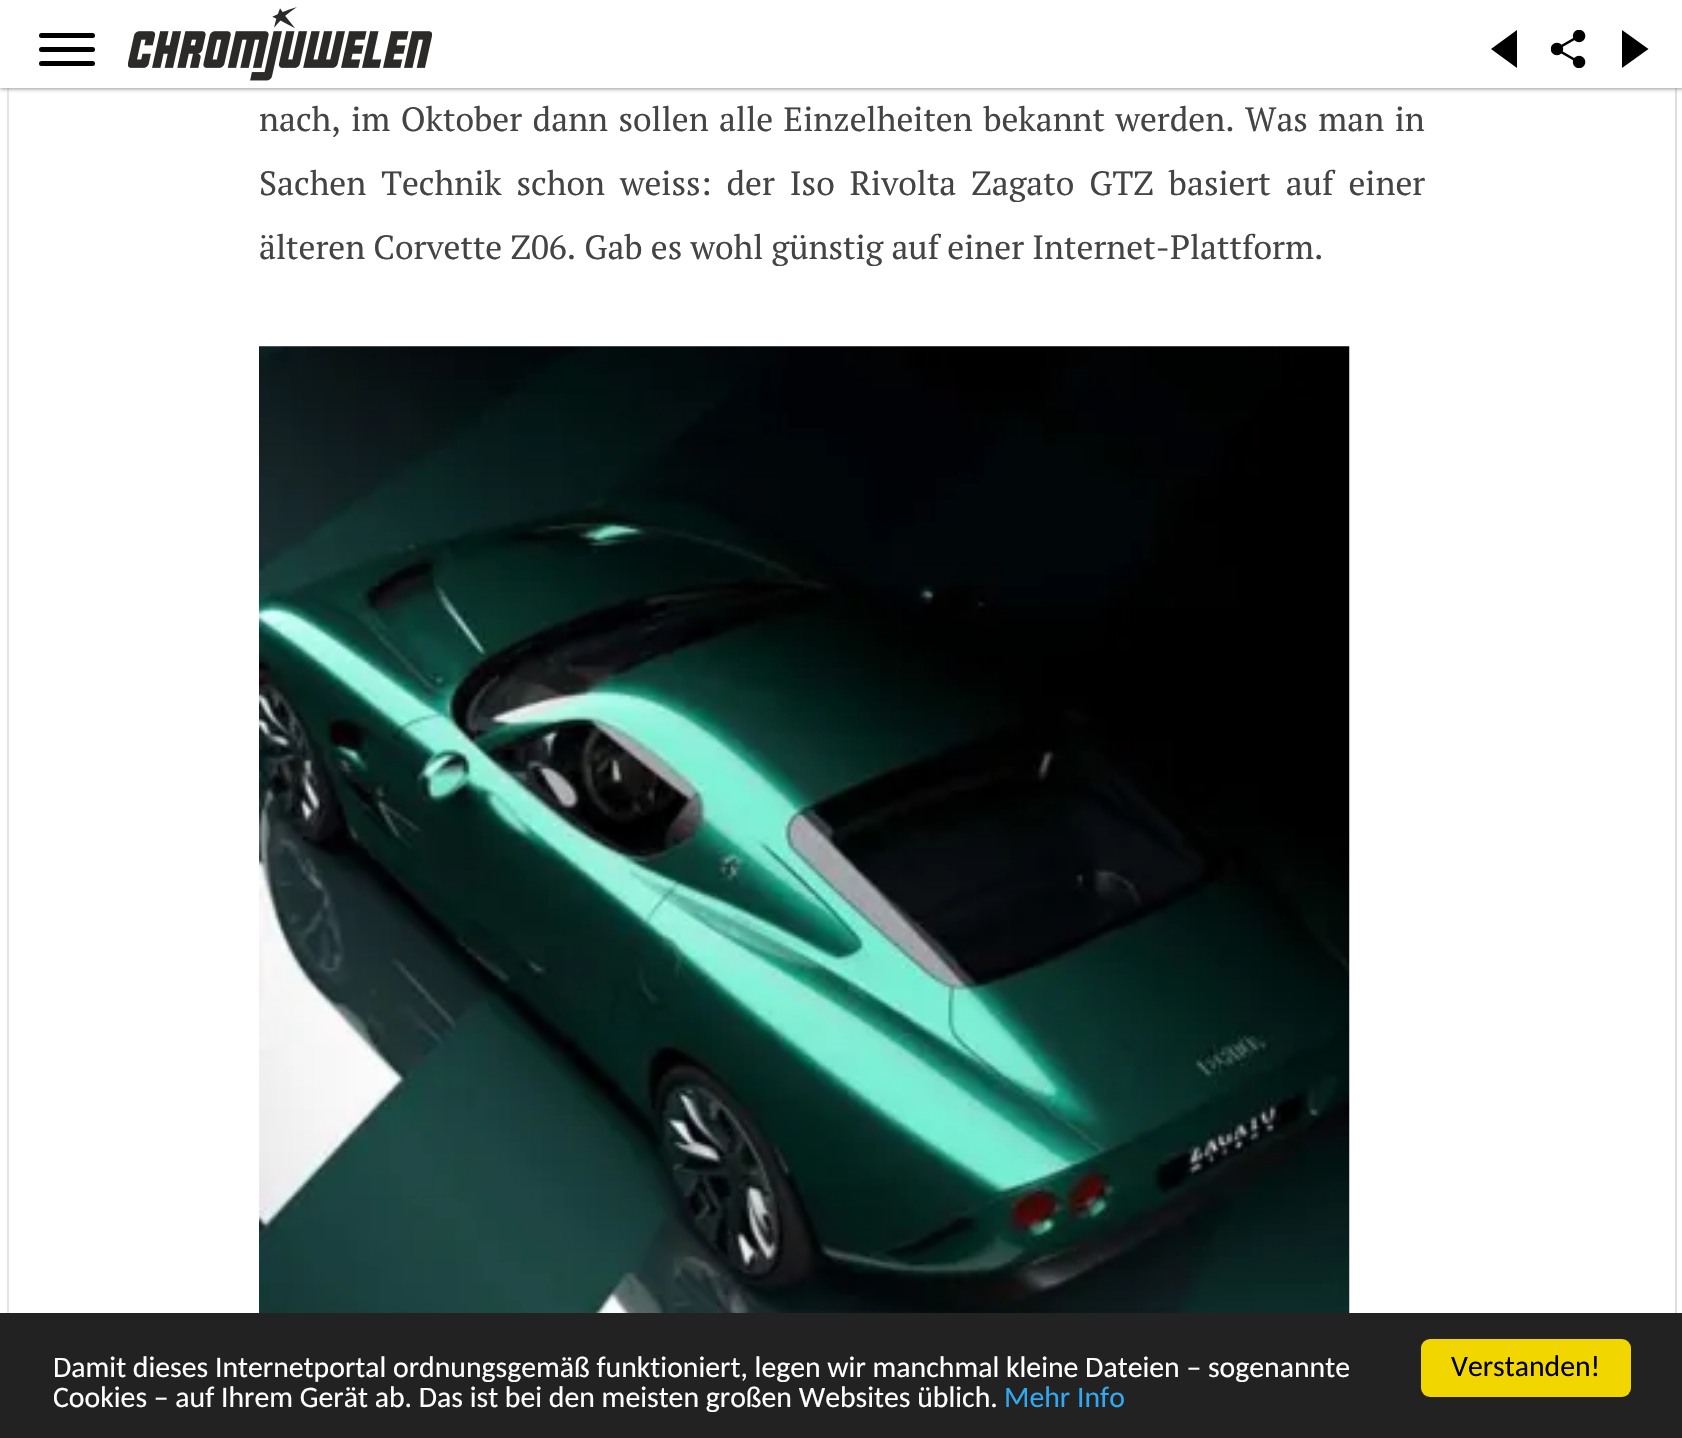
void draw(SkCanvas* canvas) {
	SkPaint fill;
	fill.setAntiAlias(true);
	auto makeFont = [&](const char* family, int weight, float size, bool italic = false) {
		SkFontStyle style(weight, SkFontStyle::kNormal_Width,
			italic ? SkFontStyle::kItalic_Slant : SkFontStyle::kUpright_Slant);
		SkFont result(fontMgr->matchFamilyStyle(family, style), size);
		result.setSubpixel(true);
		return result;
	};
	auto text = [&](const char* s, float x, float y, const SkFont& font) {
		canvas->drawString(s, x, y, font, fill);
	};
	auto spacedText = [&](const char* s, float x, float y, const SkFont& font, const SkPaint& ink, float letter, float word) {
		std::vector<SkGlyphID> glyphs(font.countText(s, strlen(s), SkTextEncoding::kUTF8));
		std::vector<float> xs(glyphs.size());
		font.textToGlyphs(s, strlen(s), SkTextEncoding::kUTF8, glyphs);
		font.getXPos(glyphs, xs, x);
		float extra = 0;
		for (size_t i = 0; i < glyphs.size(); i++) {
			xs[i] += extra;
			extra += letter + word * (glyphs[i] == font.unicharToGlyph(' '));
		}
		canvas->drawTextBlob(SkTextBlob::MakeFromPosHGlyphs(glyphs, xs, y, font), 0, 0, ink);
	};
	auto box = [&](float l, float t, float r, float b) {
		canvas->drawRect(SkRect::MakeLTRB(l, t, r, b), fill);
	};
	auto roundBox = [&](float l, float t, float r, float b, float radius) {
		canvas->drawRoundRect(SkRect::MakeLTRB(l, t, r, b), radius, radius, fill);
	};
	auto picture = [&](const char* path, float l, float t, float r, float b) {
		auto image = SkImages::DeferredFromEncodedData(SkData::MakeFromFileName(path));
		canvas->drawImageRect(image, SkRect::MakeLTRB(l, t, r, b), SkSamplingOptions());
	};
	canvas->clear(0xFFFFFFFF);
	fill.setColor(0xFFE5E5E5);
	box(7, 88, 9, 1313);
	fill.setColor(0xFFDDDDDD);
	box(1675, 88, 1677, 1313);
	fill.setColor(0xFF999999);
	fill.setMaskFilter(SkMaskFilter::MakeBlur(kNormal_SkBlurStyle, 2));
	canvas->drawRect(SkRect::MakeLTRB(0, 2, 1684, 89), fill);
	fill.setMaskFilter(nullptr);
	fill.setColor(0xFFFFFFFF);
	box(0, 0, 1682, 88);
	picture("image0.png", 128, 7, 432, 81);
	fill.setColor(0xFF000000);
	canvas->drawPath(SkPathBuilder().moveTo(1517, 30).lineTo(1517, 68).lineTo(1491, 49).close().detach(), fill);
	canvas->drawPath(SkPathBuilder().moveTo(1622, 68).lineTo(1622, 30).lineTo(1648.5f, 49).close().detach(), fill);
	roundBox(39, 33, 95, 38, 2.5f);
	roundBox(39, 47, 95, 52, 2.5f);
	roundBox(39, 61, 95, 66, 2.5f);
	picture("image1.png", 1551, 30, 1586, 68);
	picture("image2.png", 259, 346, 1350, 1313);
	fill.setColor(0xFF222222);
	box(0, 1313, 1682, 1438);
	fill.setColor(0xFFF1D600);
	roundBox(1421, 1339, 1631, 1397, 9);
	auto font1 = makeFont("PT Serif", 400, 33.6f);
	fill.setColor(0xFF444444);
	spacedText("nach, im Oktober dann sollen alle Einzelheiten bekannt werden. Was man in", 259, 131, font1, fill, 0, 2.25f);
	spacedText("Sachen Technik schon weiss: der Iso Rivolta Zagato GTZ basiert auf einer", 259, 195, font1, fill, 0, 6.75f);
	text("älteren Corvette Z06. Gab es wohl günstig auf einer Internet-Plattform.", 259, 259, font1);
	auto font2 = makeFont("Carlito", 400, 29.75f);
	fill.setColor(0xFFFFFFFF);
	text("Damit dieses Internetportal ordnungsgemäß funktioniert, legen wir manchmal kleine Dateien – sogenannte", 53, 1377, font2);
	text("Cookies – auf Ihrem Gerät ab. Das ist bei den meisten großen Websites üblich.", 53, 1407, font2);
	fill.setColor(0xFF31A8F0);
	text("Mehr Info", 1004, 1407, font2);
	fill.setColor(0xFF000000);
	text("Verstanden!", 1451, 1376, font2);
}
